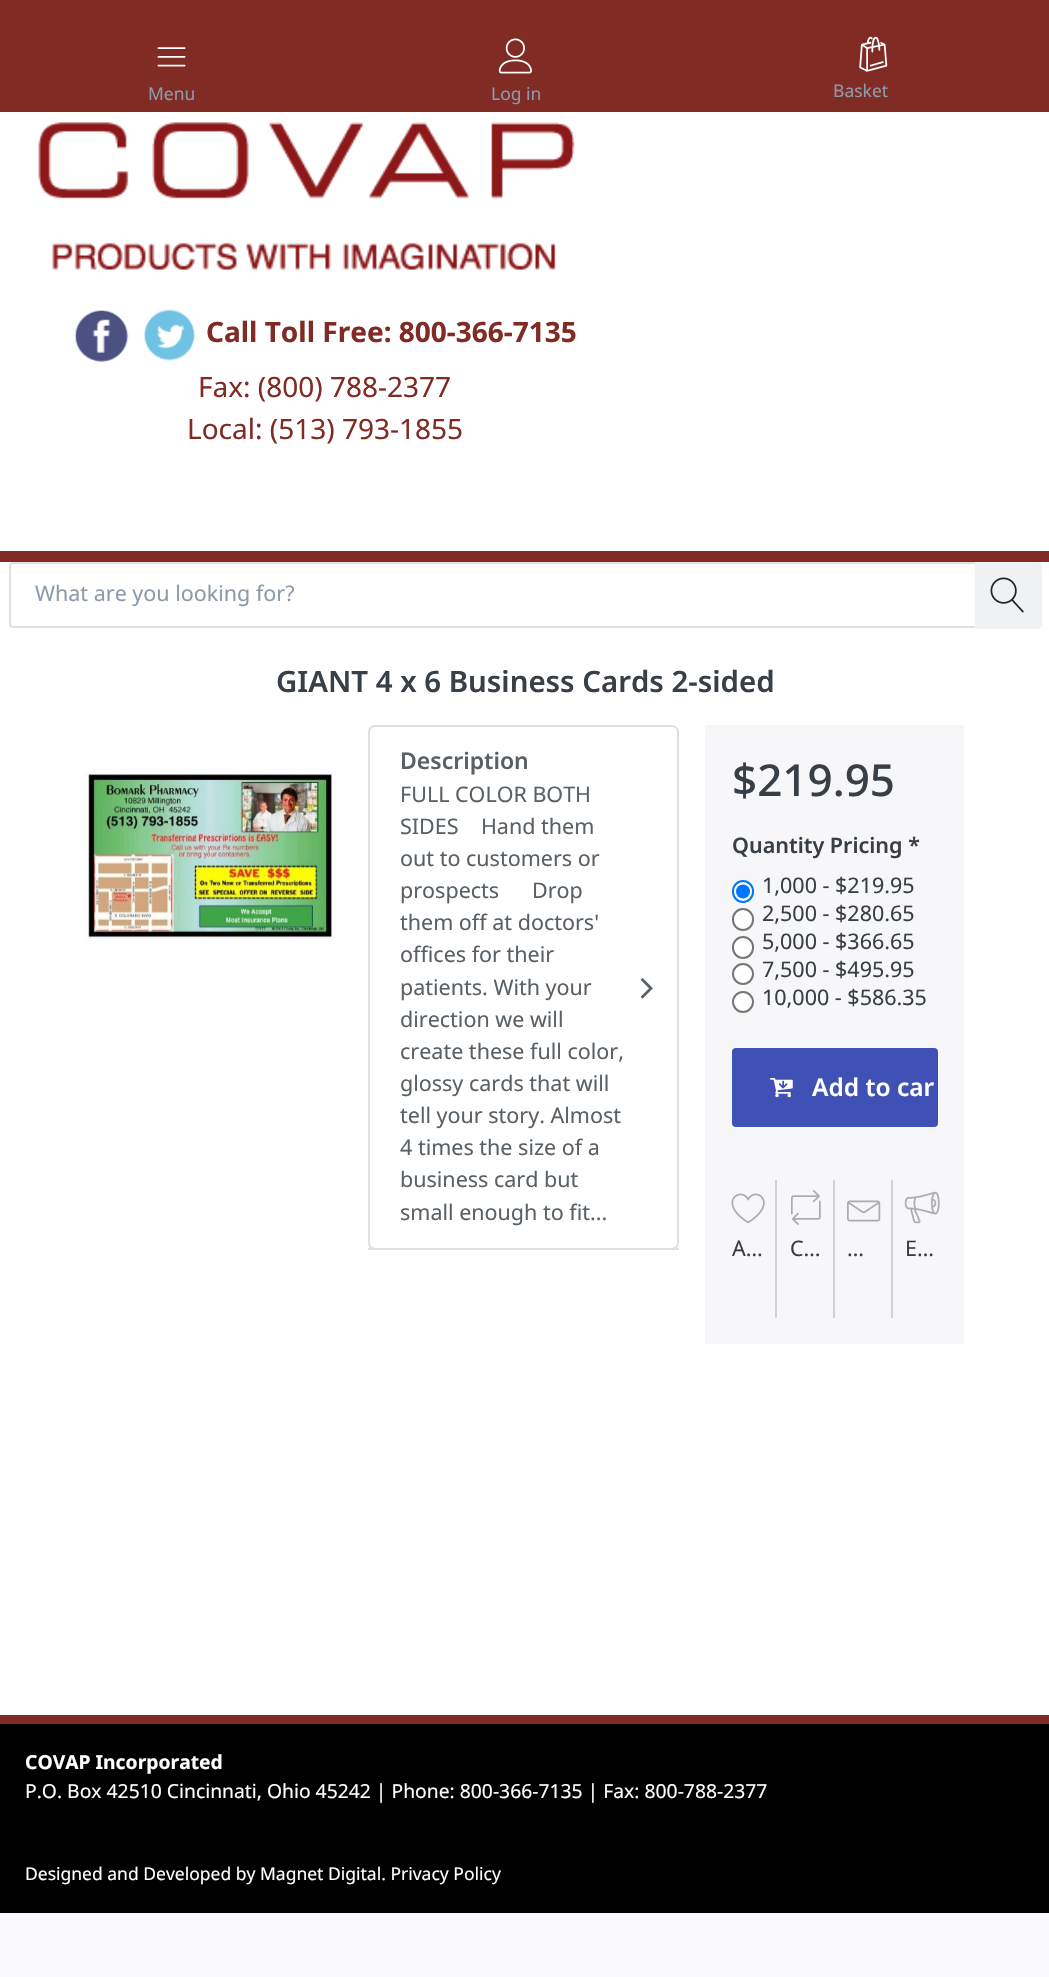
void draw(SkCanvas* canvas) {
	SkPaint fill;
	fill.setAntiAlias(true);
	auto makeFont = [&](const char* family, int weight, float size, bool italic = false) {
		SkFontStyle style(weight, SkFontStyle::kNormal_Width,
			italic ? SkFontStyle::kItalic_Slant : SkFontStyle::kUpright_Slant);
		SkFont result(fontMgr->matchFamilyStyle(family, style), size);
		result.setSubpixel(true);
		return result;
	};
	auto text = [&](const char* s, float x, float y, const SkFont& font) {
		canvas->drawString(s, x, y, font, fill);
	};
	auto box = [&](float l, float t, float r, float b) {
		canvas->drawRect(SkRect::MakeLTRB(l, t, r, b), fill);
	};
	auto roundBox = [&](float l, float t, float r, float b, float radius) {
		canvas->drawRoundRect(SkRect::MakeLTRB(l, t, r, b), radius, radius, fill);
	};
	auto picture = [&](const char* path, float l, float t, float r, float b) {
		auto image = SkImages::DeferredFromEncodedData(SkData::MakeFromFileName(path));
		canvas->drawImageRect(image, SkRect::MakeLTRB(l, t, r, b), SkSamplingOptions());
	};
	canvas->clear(0xFFFAFAFE);
	fill.setColor(0xFFFFFFFF);
	box(0, 112, 1049, 1715);
	fill.setColor(0xFF812B25);
	box(0, 551, 1049, 562);
	box(0, 0, 1049, 112);
	picture("image0.png", 157, 47, 186, 67);
	picture("image1.png", 498, 38, 532, 74);
	picture("image2.png", 859, 36, 888, 72);
	picture("image3.png", 38, 122, 575, 270);
	picture("image4.png", 74, 310, 129, 362);
	picture("image5.png", 143, 309, 195, 361);
	fill.setStyle(SkPaint::kStroke_Style);
	fill.setStrokeWidth(2);
	fill.setColor(0xFFE0E0E0);
	canvas->drawRoundRect(SkRect::MakeLTRB(10, 563, 1040, 627), 3, 3, fill);
	fill.setStyle(SkPaint::kFill_Style);
	fill.setColor(0xFFEFF1F3);
	canvas->drawPath(SkPathBuilder().moveTo(975, 564).lineTo(1038, 564).cubicTo(1039, 564, 1040, 565, 1040, 566).lineTo(1040, 625).cubicTo(1040, 626, 1039, 627, 1038, 627).lineTo(975, 627).close().detach(), fill);
	box(975, 562, 1040, 564);
	box(1040, 564, 1042, 627);
	box(975, 627, 1040, 629);
	picture("image6.png", 990, 577, 1024, 613);
	picture("image7.png", 85, 771, 336, 945);
	fill.setColor(0xFFDEE2E6);
	box(368, 1248, 679, 1250);
	fill.setColor(0xFFFFFFFF);
	roundBox(368, 725, 679, 1250, 7);
	fill.setStyle(SkPaint::kStroke_Style);
	fill.setColor(0x1F000000);
	canvas->drawRoundRect(SkRect::MakeLTRB(369, 726, 678, 1249), 6, 6, fill);
	picture("image8.png", 640, 978, 653, 999);
	fill.setStyle(SkPaint::kFill_Style);
	fill.setColor(0xFFF7F7F9);
	box(705, 725, 964, 1344);
	fill.setColor(0xFFFFFFFF);
	canvas->drawRoundRect(SkRect::MakeLTRB(733, 881, 753, 902), 10, 10, fill);
	fill.setStyle(SkPaint::kStroke_Style);
	fill.setColor(0xFF0075FF);
	canvas->drawRoundRect(SkRect::MakeLTRB(733, 881, 753, 902), 10, 10, fill);
	fill.setStyle(SkPaint::kFill_Style);
	canvas->drawCircle(743, 891.5f, 7, fill);
	fill.setColor(0xFFFFFFFF);
	canvas->drawRoundRect(SkRect::MakeLTRB(733, 909, 753, 930), 10, 10, fill);
	fill.setStyle(SkPaint::kStroke_Style);
	fill.setColor(0xFF767676);
	canvas->drawRoundRect(SkRect::MakeLTRB(733, 909, 753, 930), 10, 10, fill);
	fill.setStyle(SkPaint::kFill_Style);
	fill.setColor(0xFFFFFFFF);
	canvas->drawRoundRect(SkRect::MakeLTRB(733, 937, 753, 958), 10, 10, fill);
	fill.setStyle(SkPaint::kStroke_Style);
	fill.setColor(0xFF767676);
	canvas->drawRoundRect(SkRect::MakeLTRB(733, 937, 753, 958), 10, 10, fill);
	fill.setStyle(SkPaint::kFill_Style);
	fill.setColor(0xFFFFFFFF);
	canvas->drawCircle(743, 974, 10, fill);
	fill.setStyle(SkPaint::kStroke_Style);
	fill.setColor(0xFF767676);
	canvas->drawCircle(743, 974, 10, fill);
	fill.setStyle(SkPaint::kFill_Style);
	fill.setColor(0xFFFFFFFF);
	canvas->drawCircle(743, 1002, 10, fill);
	fill.setStyle(SkPaint::kStroke_Style);
	fill.setColor(0xFF767676);
	canvas->drawCircle(743, 1002, 10, fill);
	fill.setStyle(SkPaint::kFill_Style);
	fill.setColor(0xFF3F51B5);
	canvas->drawRoundRect(SkRect::MakeLTRB(733, 1049, 937, 1126), 3, 3, fill);
	fill.setStyle(SkPaint::kStroke_Style);
	canvas->drawRoundRect(SkRect::MakeLTRB(733, 1049, 937, 1126), 3, 3, fill);
	picture("image9.png", 770, 1078, 793, 1098);
	fill.setStyle(SkPaint::kFill_Style);
	fill.setColor(0xFFD2D2D4);
	box(775, 1180, 777, 1318);
	picture("image10.png", 731, 1193, 765, 1224);
	box(833, 1180, 835, 1318);
	picture("image11.png", 791, 1190, 821, 1225);
	box(891, 1180, 893, 1318);
	picture("image12.png", 847, 1200, 881, 1222);
	picture("image13.png", 904, 1191, 940, 1224);
	fill.setColor(0xFF000000);
	box(0, 1724, 1049, 1913);
	fill.setColor(0xFF812B25);
	box(0, 1715, 1049, 1724);
	auto font1 = makeFont("Noto Sans", 400, 17.5f);
	fill.setColor(0xFF8D9BA9);
	text("Menu", 148, 100, font1);
	text("Log in", 491, 100, font1);
	text("Basket", 833, 97, font1);
	auto font2 = makeFont("Noto Sans", 700, 28);
	fill.setColor(0xFF812B25);
	text("Call Toll Free: 800-366-7135", 206, 342, font2);
	auto font3 = makeFont("Noto Sans", 400, 28);
	text("Fax: (800) 788-2377", 198, 397, font3);
	text("Local: (513) 793-1855", 187, 439, font3);
	auto font4 = makeFont("Noto Sans", 400, 21.5f);
	fill.setColor(0xFF8D9BA9);
	text("What are you looking for?", 35, 601, font4);
	auto font5 = makeFont("Noto Sans", 600, 29.4f);
	fill.setColor(0xFF393F46);
	text("GIANT 4 x 6 Business Cards 2-sided", 276, 692, font5);
	auto font6 = makeFont("Noto Sans", 600, 23);
	fill.setColor(0xFF596167);
	text("Description", 400, 769, font6);
	text("FULL COLOR BOTH", 400, 802, font4);
	text("SIDES    Hand them", 400, 834, font4);
	text("out to customers or", 400, 866, font4);
	text("prospects", 400, 898, font4);
	text("Drop", 532, 898, font4);
	text("them off at doctors'", 400, 930, font4);
	text("offices for their", 400, 962, font4);
	text("patients. With your", 400, 995, font4);
	text("direction we will", 400, 1027, font4);
	text("create these full color,", 400, 1059, font4);
	text("glossy cards that will", 400, 1091, font4);
	text("tell your story. Almost", 400, 1123, font4);
	text("4 times the size of a", 400, 1155, font4);
	text("business card but", 400, 1187, font4);
	text("small enough to fit...", 400, 1220, font4);
	auto font7 = makeFont("Noto Sans", 500, 44);
	fill.setColor(0xFF393F46);
	text("$219.95", 732, 796, font7);
	auto font8 = makeFont("Noto Sans", 600, 21.5f);
	text("Quantity Pricing *", 732, 853, font8);
	text("1,000 - $219.95", 762, 893, font4);
	text("2,500 - $280.65", 762, 921, font4);
	text("5,000 - $366.65", 762, 949, font4);
	text("7,500 - $495.95", 762, 977, font4);
	text("10,000 - $586.35", 762, 1005, font4);
	auto font9 = makeFont("Noto Sans", 600, 24.5f);
	fill.setColor(0xFFFFFFFF);
	text("Add to car", 812, 1096, font9);
	fill.setColor(0xFF393F46);
	text("A…", 732, 1256, font4);
	text("C…", 790, 1256, font4);
	text("…", 847, 1256, font4);
	text("E…", 905, 1256, font4);
	auto font10 = makeFont("Noto Sans", 700, 19.3f);
	fill.setColor(0xFFFFFFFF);
	text("COVAP Incorporated", 25, 1769, font10);
	auto font11 = makeFont("Noto Sans", 400, 19.3f);
	text("P.O. Box 42510 Cincinnati, Ohio 45242 | Phone: 800-366-7135 | Fax: 800-788-2377", 25, 1798, font11);
	text("Designed and Developed by Magnet Digital. Privacy Policy", 25, 1880, font1);
}
